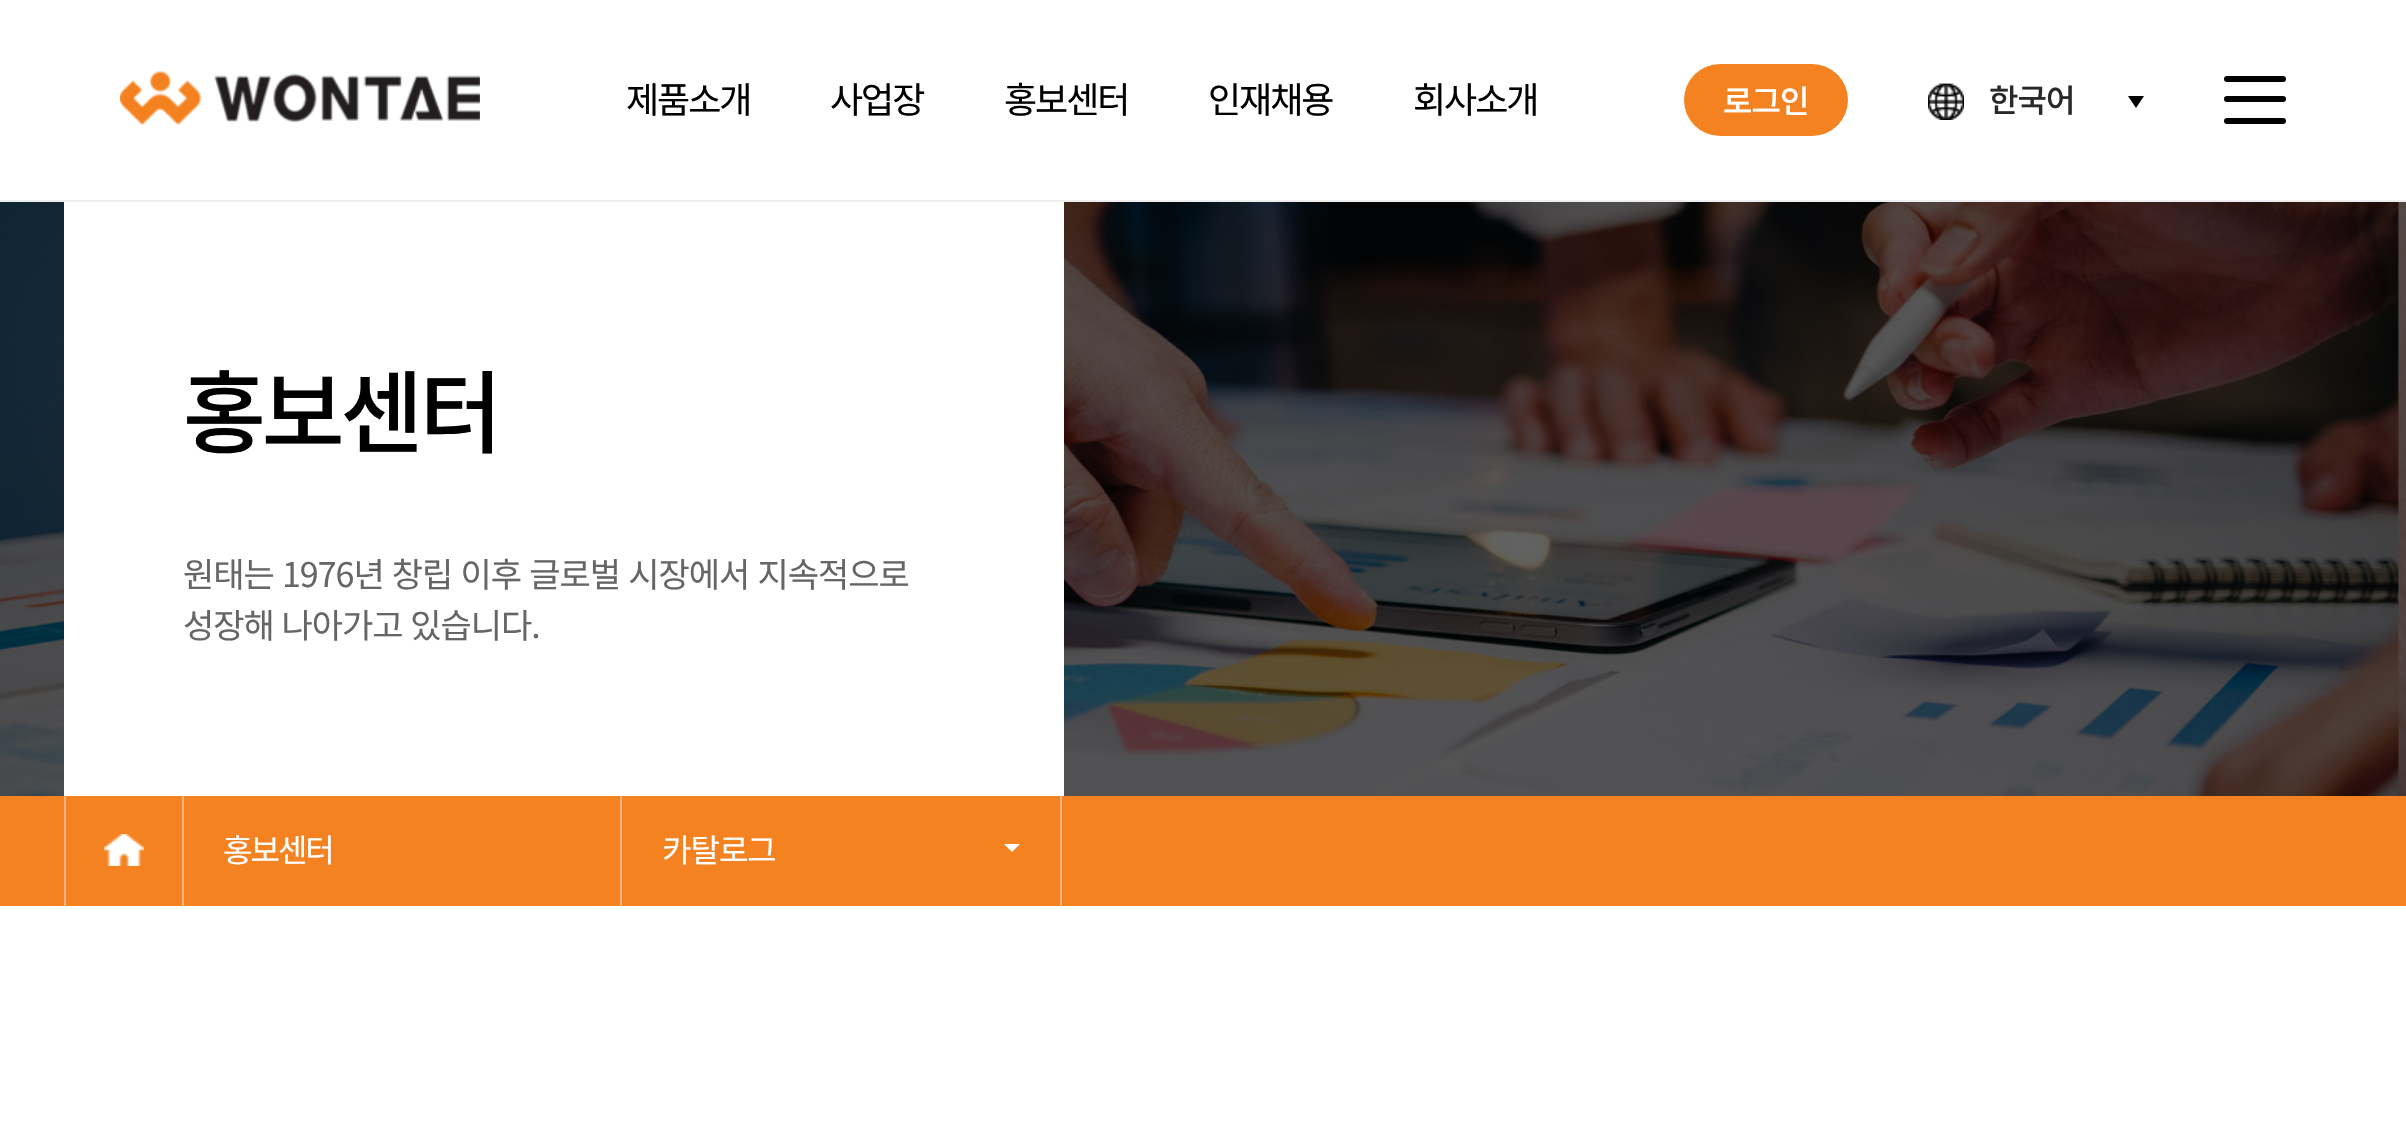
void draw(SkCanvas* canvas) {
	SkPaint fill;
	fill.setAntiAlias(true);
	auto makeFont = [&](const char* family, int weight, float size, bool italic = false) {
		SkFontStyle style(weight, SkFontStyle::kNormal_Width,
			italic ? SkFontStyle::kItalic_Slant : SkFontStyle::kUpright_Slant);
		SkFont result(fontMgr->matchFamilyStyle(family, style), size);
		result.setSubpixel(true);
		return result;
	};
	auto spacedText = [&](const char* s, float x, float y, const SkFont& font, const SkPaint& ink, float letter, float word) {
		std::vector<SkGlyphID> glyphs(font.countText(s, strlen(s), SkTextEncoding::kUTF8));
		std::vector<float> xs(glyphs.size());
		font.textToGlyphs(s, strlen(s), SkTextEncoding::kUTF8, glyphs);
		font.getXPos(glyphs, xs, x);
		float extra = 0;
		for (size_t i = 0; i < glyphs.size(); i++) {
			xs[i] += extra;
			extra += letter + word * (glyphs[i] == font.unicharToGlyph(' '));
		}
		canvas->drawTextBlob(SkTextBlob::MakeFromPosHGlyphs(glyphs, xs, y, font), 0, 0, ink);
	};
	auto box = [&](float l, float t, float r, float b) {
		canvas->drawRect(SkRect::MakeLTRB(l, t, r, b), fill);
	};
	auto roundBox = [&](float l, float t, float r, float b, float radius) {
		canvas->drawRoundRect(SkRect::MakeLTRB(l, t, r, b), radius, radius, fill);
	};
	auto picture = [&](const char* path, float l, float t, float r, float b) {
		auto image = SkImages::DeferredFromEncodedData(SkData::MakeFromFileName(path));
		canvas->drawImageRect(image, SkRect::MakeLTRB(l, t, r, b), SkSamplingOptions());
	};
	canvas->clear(0xFFFFFFFF);
	fill.setColor(0xFFEEEEEE);
	box(0, 200, 2406, 202);
	picture("image0.png", 120, 71, 480, 125);
	fill.setColor(0xFFF58220);
	roundBox(1684, 64, 1848, 136, 36);
	picture("image1.png", 1928, 83, 1964, 120);
	fill.setColor(0xFF000000);
	canvas->drawPath(SkPathBuilder().moveTo(2128, 96).lineTo(2144, 96).lineTo(2136, 108).close().detach(), fill);
	roundBox(2224, 76, 2286, 82, 3);
	roundBox(2224, 96, 2286, 102, 3);
	roundBox(2224, 118, 2286, 124, 3);
	picture("image2.png", 0, 202, 2406, 796);
	fill.setColor(0xFFFFFFFF);
	box(64, 202, 1064, 796);
	fill.setColor(0xFFF58220);
	box(0, 796, 2406, 906);
	fill.setColor(0xFFEEB483);
	box(182, 796, 184, 906);
	box(64, 796, 66, 906);
	picture("image3.png", 104, 834, 144, 866);
	box(620, 796, 622, 906);
	box(1060, 796, 1062, 906);
	fill.setColor(0xFFFFFFFF);
	canvas->drawPath(SkPathBuilder().moveTo(1004, 844).lineTo(1020, 844).lineTo(1012, 852).close().detach(), fill);
	auto font1 = makeFont("Noto Sans KR", 400, 36);
	fill.setColor(0xFF000000);
	spacedText("제품소개", 626, 113, font1, fill, -2, 0);
	spacedText("사업장", 830, 113, font1, fill, -2, 0);
	spacedText("홍보센터", 1004, 113, font1, fill, -2, 0);
	spacedText("인재채용", 1208, 113, font1, fill, -2, 0);
	spacedText("회사소개", 1413, 113, font1, fill, -2, 0);
	auto font2 = makeFont("Noto Sans KR", 500, 32);
	fill.setColor(0xFFFFFFFF);
	spacedText("로그인", 1723, 113, font2, fill, -1, 0);
	fill.setColor(0xFF292929);
	spacedText("한국어", 1989, 112, font2, fill, -1, 0);
	auto font3 = makeFont("Noto Sans KR", 500, 90);
	fill.setColor(0xFF000000);
	spacedText("홍보센터", 183, 446, font3, fill, -4, 0);
	auto font4 = makeFont("Noto Sans KR", 400, 34);
	fill.setColor(0xFF666666);
	spacedText("원태는 1976년 창립 이후 글로벌 시장에서 지속적으로", 183, 587, font4, fill, -1, 1.5f);
	spacedText("성장해 나아가고 있습니다.", 183, 638, font4, fill, -1, 1);
	auto font5 = makeFont("Noto Sans KR", 400, 32);
	fill.setColor(0xFFFFFFFF);
	spacedText("홍보센터", 223, 862, font5, fill, -2, 0);
	spacedText("카탈로그", 662, 862, font5, fill, -1, 0);
}
